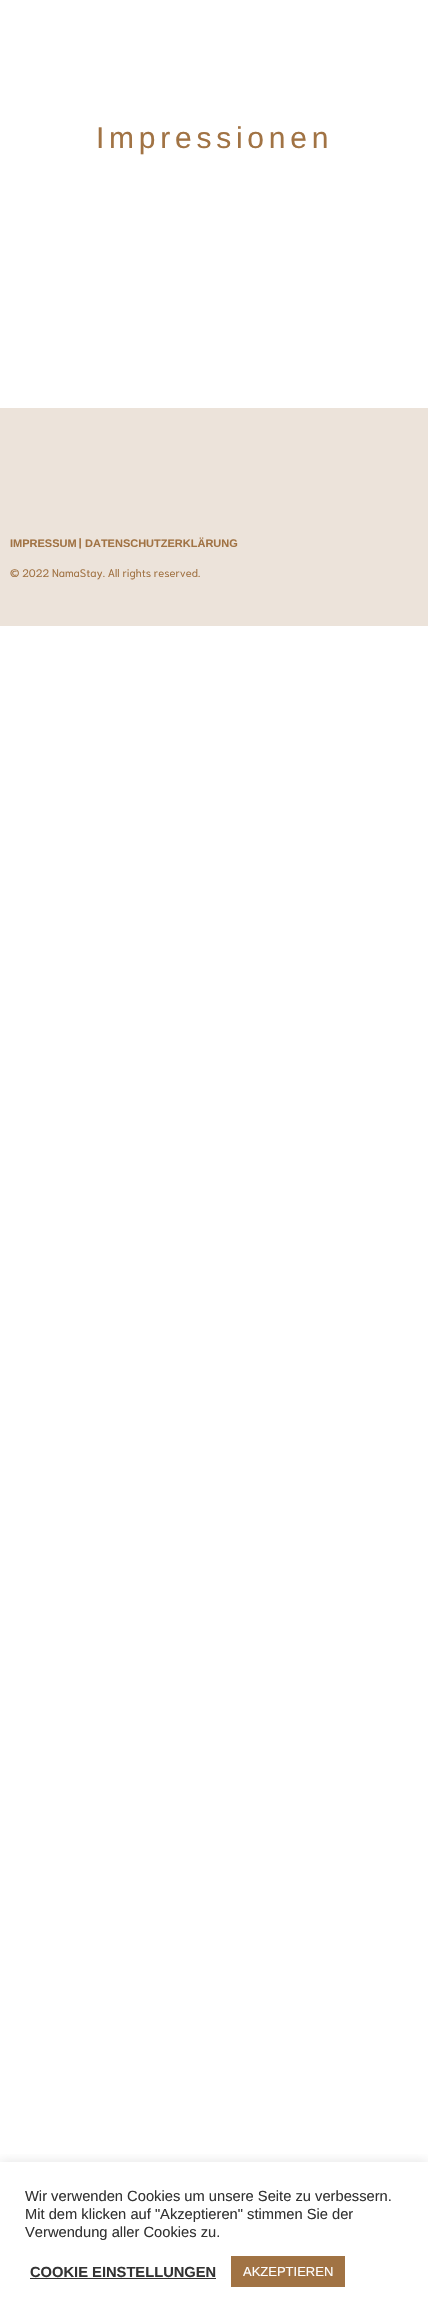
void draw(SkCanvas* canvas) {
	SkPaint fill;
	fill.setAntiAlias(true);
	auto makeFont = [&](const char* family, int weight, float size, bool italic = false) {
		SkFontStyle style(weight, SkFontStyle::kNormal_Width,
			italic ? SkFontStyle::kItalic_Slant : SkFontStyle::kUpright_Slant);
		SkFont result(fontMgr->matchFamilyStyle(family, style), size);
		result.setSubpixel(true);
		return result;
	};
	auto text = [&](const char* s, float x, float y, const SkFont& font) {
		canvas->drawString(s, x, y, font, fill);
	};
	auto spacedText = [&](const char* s, float x, float y, const SkFont& font, const SkPaint& ink, float letter, float word) {
		std::vector<SkGlyphID> glyphs(font.countText(s, strlen(s), SkTextEncoding::kUTF8));
		std::vector<float> xs(glyphs.size());
		font.textToGlyphs(s, strlen(s), SkTextEncoding::kUTF8, glyphs);
		font.getXPos(glyphs, xs, x);
		float extra = 0;
		for (size_t i = 0; i < glyphs.size(); i++) {
			xs[i] += extra;
			extra += letter + word * (glyphs[i] == font.unicharToGlyph(' '));
		}
		canvas->drawTextBlob(SkTextBlob::MakeFromPosHGlyphs(glyphs, xs, y, font), 0, 0, ink);
	};
	auto box = [&](float l, float t, float r, float b) {
		canvas->drawRect(SkRect::MakeLTRB(l, t, r, b), fill);
	};
	canvas->clear(0xFFFFFFFF);
	fill.setColor(0xFFECE3DA);
	box(0, 408, 428, 626);
	canvas->save();
	canvas->clipRect(SkRect::MakeLTRB(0, 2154, 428, 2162));
	fill.setColor(0x4DACABAB);
	fill.setMaskFilter(SkMaskFilter::MakeBlur(kNormal_SkBlurStyle, 5));
	canvas->drawRect(SkRect::MakeLTRB(0, 2161, 428, 2316), fill);
	fill.setMaskFilter(nullptr);
	canvas->restore();
	fill.setColor(0xFF333333);
	box(30, 2278, 216, 2279);
	fill.setColor(0xFFA17344);
	box(231, 2256, 345, 2287);
	auto font1 = makeFont("Liberation Sans", 400, 30);
	spacedText("Impressionen", 96, 148, font1, fill, 4.75f, 0);
	auto font2 = makeFont("Liberation Sans", 700, 11);
	text("IMPRESSUM", 10, 547, font2);
	auto font3 = makeFont("Niramit", 700, 11);
	text("|", 79, 547, font3);
	text("DATENSCHUTZERKLÄRUNG", 85, 547, font2);
	auto font4 = makeFont("Niramit", 400, 11);
	text("© 2022 NamaStay. All rights reserved.", 10, 577, font4);
	auto font5 = makeFont("Liberation Sans", 400, 14.7f);
	fill.setColor(0xFF333333);
	text("Wir verwenden Cookies um unsere Seite zu verbessern.", 25, 2201, font5);
	text("Mit dem klicken auf \"Akzeptieren\" stimmen Sie der", 25, 2219, font5);
	text("Verwendung aller Cookies zu.", 25, 2237, font5);
	auto font6 = makeFont("Liberation Sans", 700, 14.7f);
	text("COOKIE EINSTELLUNGEN", 30, 2277, font6);
	auto font7 = makeFont("Liberation Sans", 400, 13);
	fill.setColor(0xFFFFFFFF);
	text("AKZEPTIEREN", 243, 2276, font7);
}
